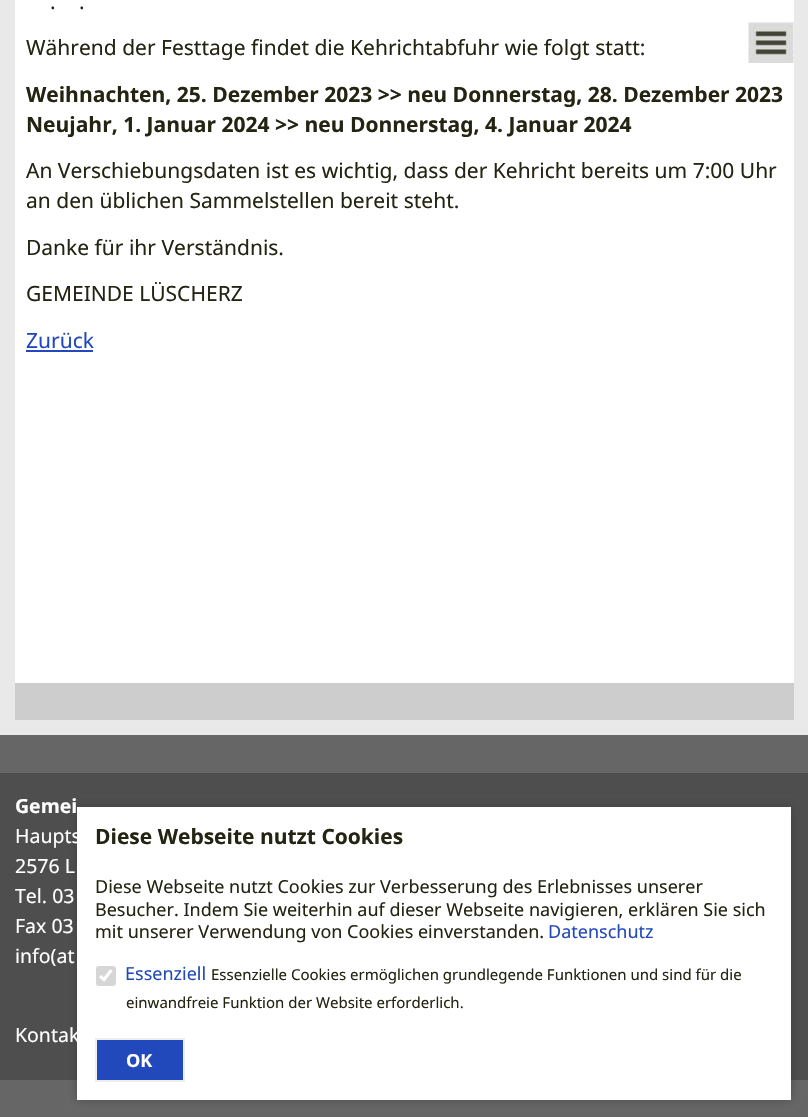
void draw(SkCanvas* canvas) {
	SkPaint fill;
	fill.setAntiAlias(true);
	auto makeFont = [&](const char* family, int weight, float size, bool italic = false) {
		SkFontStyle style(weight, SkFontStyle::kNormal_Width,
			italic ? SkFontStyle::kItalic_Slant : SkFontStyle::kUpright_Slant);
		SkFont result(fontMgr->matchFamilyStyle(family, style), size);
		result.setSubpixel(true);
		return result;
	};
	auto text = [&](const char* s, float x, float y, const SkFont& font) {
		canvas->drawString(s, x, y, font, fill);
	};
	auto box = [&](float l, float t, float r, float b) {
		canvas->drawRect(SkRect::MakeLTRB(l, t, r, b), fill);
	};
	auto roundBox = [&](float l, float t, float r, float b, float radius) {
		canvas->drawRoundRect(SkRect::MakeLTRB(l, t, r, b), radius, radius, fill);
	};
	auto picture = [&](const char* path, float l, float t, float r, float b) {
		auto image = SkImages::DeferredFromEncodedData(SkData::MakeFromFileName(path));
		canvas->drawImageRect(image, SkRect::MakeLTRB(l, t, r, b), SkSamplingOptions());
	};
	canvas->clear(0xFFE9E9E9);
	fill.setColor(0xFFFFFFFF);
	box(15, 0, 794, 683);
	fill.setColor(0xFF2249BB);
	box(26, 350, 93, 352);
	fill.setColor(0xFFCDCDCD);
	box(15, 683, 794, 720);
	picture("image0.png", 748, 22, 794, 63);
	fill.setColor(0xFF666666);
	box(0, 735, 808, 773);
	fill.setColor(0xFF4E4E4E);
	box(0, 773, 808, 1080);
	fill.setColor(0xFF666666);
	box(0, 1080, 808, 1117);
	fill.setColor(0x80323232);
	fill.setMaskFilter(SkMaskFilter::MakeBlur(kNormal_SkBlurStyle, 4.5f));
	canvas->drawRect(SkRect::MakeLTRB(77, 807, 791, 1100), fill);
	fill.setMaskFilter(nullptr);
	fill.setColor(0xFFFFFFFF);
	box(77, 807, 791, 1100);
	fill.setColor(0xFFD6D6D6);
	roundBox(96, 966, 116, 986, 3);
	fill.setStyle(SkPaint::kStroke_Style);
	fill.setStrokeWidth(3.1f);
	fill.setColor(0xFFFFFFFF);
	canvas->drawPath(SkPathBuilder().moveTo(100, 976).lineTo(104, 979.5f).lineTo(111.5f, 970).detach(), fill);
	fill.setStyle(SkPaint::kFill_Style);
	fill.setColor(0xFF2249BB);
	canvas->drawRect(SkRect::MakeLTRB(96, 1039, 184, 1081), fill);
	fill.setStyle(SkPaint::kStroke_Style);
	fill.setStrokeWidth(2);
	fill.setColor(0xFFEEEEEE);
	canvas->drawRect(SkRect::MakeLTRB(96, 1039, 184, 1081), fill);
	auto font1 = makeFont("Noto Sans", 400, 21);
	fill.setStyle(SkPaint::kFill_Style);
	fill.setColor(0xFF242413);
	text(".", 50, 9, font1);
	text(".", 79, 9, font1);
	text("Während der Festtage findet die Kehrichtabfuhr wie folgt statt:", 26, 55, font1);
	auto font2 = makeFont("Noto Sans", 700, 21);
	text("Weihnachten, 25. Dezember 2023 >> neu Donnerstag, 28. Dezember 2023", 26, 102, font2);
	text("Neujahr, 1. Januar 2024 >> neu Donnerstag, 4. Januar 2024", 26, 132, font2);
	text("An Verschiebungsdaten ist es wichtig, dass der Kehricht bereits um 7:00 Uhr", 26, 178, font1);
	text("an den üblichen Sammelstellen bereit steht.", 26, 208, font1);
	text("Danke für ihr Verständnis.", 26, 255, font1);
	text("GEMEINDE LÜSCHERZ", 26, 301, font1);
	fill.setColor(0xFF2249BB);
	text("Zurück", 26, 348, font1);
	auto font3 = makeFont("Noto Sans", 700, 19.5f);
	fill.setColor(0xFFFFFFFF);
	text("Gemei", 15, 813, font3);
	auto font4 = makeFont("Noto Sans", 400, 19.5f);
	text("Haupts", 15, 843, font4);
	text("2576 L", 15, 873, font4);
	text("Tel. 03", 15, 903, font4);
	text("Fax 03", 15, 933, font4);
	text("info(at", 15, 963, font4);
	text("Kontak", 15, 1042, font4);
	fill.setColor(0xFF242413);
	text("Diese Webseite nutzt Cookies", 95, 844, font2);
	auto font5 = makeFont("Noto Sans", 400, 18);
	text("Diese Webseite nutzt Cookies zur Verbesserung des Erlebnisses unserer", 95, 893, font5);
	text("Besucher. Indem Sie weiterhin auf dieser Webseite navigieren, erklären Sie sich", 95, 916, font5);
	text("mit unserer Verwendung von Cookies einverstanden.", 95, 938, font5);
	fill.setColor(0xFF2249BB);
	text("Datenschutz", 548, 938, font5);
	text("Essenziell", 125, 980, font5);
	auto font6 = makeFont("Noto Sans", 400, 15);
	fill.setColor(0xFF242413);
	text("Essenzielle Cookies ermöglichen grundlegende Funktionen und sind für die", 211, 980, font6);
	text("einwandfreie Funktion der Website erforderlich.", 126, 1008, font6);
	auto font7 = makeFont("Noto Sans", 700, 18);
	fill.setColor(0xFFFFFFFF);
	text("OK", 126, 1067, font7);
}
